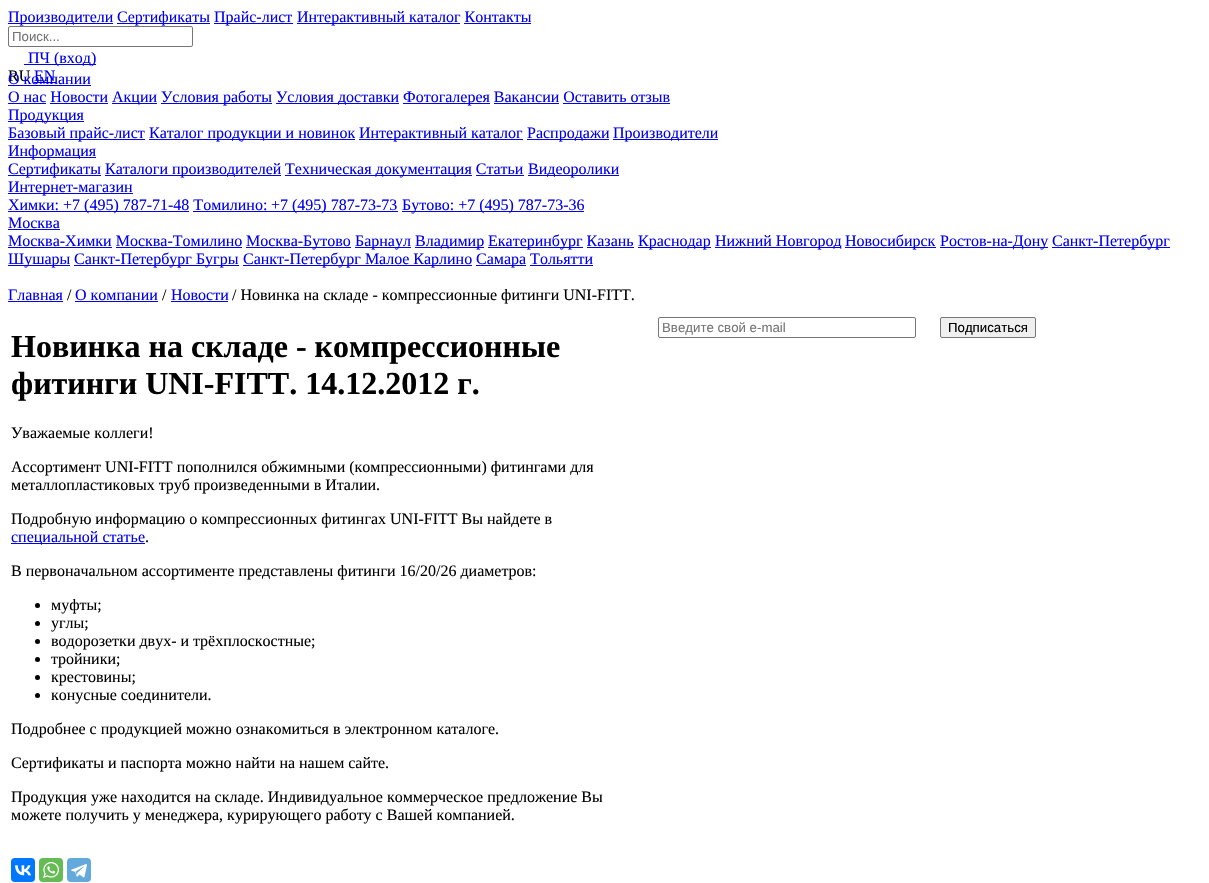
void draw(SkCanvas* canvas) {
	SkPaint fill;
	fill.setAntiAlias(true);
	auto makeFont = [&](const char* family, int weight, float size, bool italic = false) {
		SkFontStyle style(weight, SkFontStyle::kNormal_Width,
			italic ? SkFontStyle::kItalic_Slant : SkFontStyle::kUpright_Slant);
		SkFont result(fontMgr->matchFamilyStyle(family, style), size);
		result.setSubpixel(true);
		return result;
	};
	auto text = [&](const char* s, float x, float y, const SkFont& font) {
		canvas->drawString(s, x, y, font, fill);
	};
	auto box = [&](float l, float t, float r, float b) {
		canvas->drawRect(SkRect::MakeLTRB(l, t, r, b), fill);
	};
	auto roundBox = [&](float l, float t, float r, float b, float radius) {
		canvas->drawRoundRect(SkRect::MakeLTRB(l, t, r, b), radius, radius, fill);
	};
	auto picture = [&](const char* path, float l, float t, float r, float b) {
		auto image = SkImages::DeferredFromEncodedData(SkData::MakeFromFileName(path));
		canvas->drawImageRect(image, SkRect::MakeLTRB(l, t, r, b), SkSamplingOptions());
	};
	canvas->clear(0xFFFFFFFF);
	fill.setColor(0xFF0000EE);
	box(8, 23, 113, 24);
	box(117, 23, 210, 24);
	box(214, 23, 293, 24);
	box(297, 23, 460, 24);
	box(464, 23, 531, 24);
	fill.setStyle(SkPaint::kStroke_Style);
	fill.setStrokeWidth(1);
	fill.setColor(0xFF767676);
	canvas->drawRoundRect(SkRect::MakeLTRB(8.5f, 26.5f, 192.5f, 46.5f), 1.5f, 1.5f, fill);
	fill.setStyle(SkPaint::kFill_Style);
	fill.setColor(0xFF0000EE);
	box(24, 64, 96, 65);
	box(34, 82, 56, 83);
	box(8, 85, 91, 86);
	box(8, 103, 46, 104);
	box(112, 103, 157, 104);
	box(161, 103, 272, 104);
	box(276, 103, 399, 104);
	box(403, 103, 490, 104);
	box(50, 103, 108, 104);
	box(494, 103, 559, 104);
	box(563, 103, 670, 104);
	box(8, 121, 84, 122);
	box(8, 139, 145, 140);
	box(149, 139, 355, 140);
	box(359, 139, 523, 140);
	box(527, 139, 609, 140);
	box(613, 139, 718, 140);
	box(8, 157, 96, 158);
	box(8, 175, 101, 176);
	box(105, 175, 281, 176);
	box(285, 175, 472, 176);
	box(528, 175, 619, 176);
	box(476, 175, 524, 176);
	box(8, 193, 133, 194);
	box(8, 211, 189, 212);
	box(193, 211, 398, 212);
	box(402, 211, 584, 212);
	box(8, 229, 60, 230);
	box(8, 247, 112, 248);
	box(246, 247, 351, 248);
	box(355, 247, 411, 248);
	box(415, 247, 484, 248);
	box(488, 247, 583, 248);
	box(638, 247, 711, 248);
	box(715, 247, 841, 248);
	box(845, 247, 936, 248);
	box(940, 247, 1048, 248);
	box(1052, 247, 1170, 248);
	box(116, 247, 242, 248);
	box(587, 247, 634, 248);
	box(8, 265, 70, 266);
	box(74, 265, 239, 266);
	box(243, 265, 472, 266);
	box(476, 265, 526, 266);
	box(530, 265, 593, 266);
	box(8, 301, 63, 302);
	box(75, 301, 158, 302);
	box(171, 301, 228, 302);
	fill.setStyle(SkPaint::kStroke_Style);
	fill.setColor(0xFF767676);
	canvas->drawRoundRect(SkRect::MakeLTRB(658.5f, 317.5f, 915.5f, 337.5f), 1.5f, 1.5f, fill);
	fill.setStyle(SkPaint::kFill_Style);
	fill.setColor(0xFFEFEFEF);
	canvas->drawRoundRect(SkRect::MakeLTRB(940.5f, 317.5f, 1035.5f, 337.5f), 1.5f, 1.5f, fill);
	fill.setStyle(SkPaint::kStroke_Style);
	fill.setColor(0xFF767676);
	canvas->drawRoundRect(SkRect::MakeLTRB(940.5f, 317.5f, 1035.5f, 337.5f), 1.5f, 1.5f, fill);
	fill.setStyle(SkPaint::kFill_Style);
	fill.setColor(0xFF0000EE);
	box(11, 543, 145, 544);
	fill.setColor(0xFF000000);
	canvas->drawCircle(37.5f, 605.5f, 2.5f, fill);
	canvas->drawCircle(37.5f, 623.5f, 2.5f, fill);
	canvas->drawCircle(37.5f, 641.5f, 2.5f, fill);
	canvas->drawCircle(37.5f, 659.5f, 2.5f, fill);
	canvas->drawCircle(37.5f, 677.5f, 2.5f, fill);
	canvas->drawCircle(37.5f, 695.5f, 2.5f, fill);
	fill.setColor(0xFF0077FF);
	roundBox(11, 858, 35, 882, 4);
	picture("image0.png", 15, 865, 31, 876);
	fill.setColor(0xFF65BC54);
	roundBox(39, 858, 63, 882, 4);
	picture("image1.png", 43, 862, 59, 878);
	fill.setColor(0xFF64A9DC);
	roundBox(67, 858, 91, 882, 4);
	picture("image2.png", 71, 864, 87, 878);
	auto font1 = makeFont("Liberation Serif", 400, 16);
	fill.setColor(0xFF0000EE);
	text("Производители", 8, 22, font1);
	text("Сертификаты", 117, 22, font1);
	text("Прайс-лист", 214, 22, font1);
	text("Интерактивный каталог Контакты", 297, 22, font1);
	auto font2 = makeFont("Liberation Sans", 400, 13.25f);
	fill.setColor(0xFF757575);
	text("Поиск...", 12, 41, font2);
	fill.setColor(0xFF0000EE);
	text("ПЧ (вход)", 28, 63, font1);
	fill.setColor(0xFF000000);
	text("RU", 8, 81, font1);
	fill.setColor(0xFF0000EE);
	text("EN", 34, 81, font1);
	text("О компании", 8, 84, font1);
	text("О нас Новости", 8, 102, font1);
	text("Акции", 112, 102, font1);
	text("Условия работы", 161, 102, font1);
	text("Условия доставки", 276, 102, font1);
	text("Фотогалерея Вакансии Оставить отзыв", 403, 102, font1);
	text("Продукция", 8, 120, font1);
	text("Базовый прайс-лист", 8, 138, font1);
	text("Каталог продукции и новинок", 149, 138, font1);
	text("Интерактивный каталог", 359, 138, font1);
	text("Распродажи", 527, 138, font1);
	text("Производители", 613, 138, font1);
	text("Информация", 8, 156, font1);
	text("Сертификаты", 8, 174, font1);
	text("Каталоги производителей", 105, 174, font1);
	text("Техническая документация Статьи", 285, 174, font1);
	text("Видеоролики", 528, 174, font1);
	text("Интернет-магазин", 8, 192, font1);
	text("Химки: +7 (495) 787-71-48 Томилино:", 8, 210, font1);
	text("+7 (495) 787-73-73", 271, 210, font1);
	text("Бутово: +7 (495) 787-73-36", 402, 210, font1);
	text("Москва", 8, 228, font1);
	text("Москва-Химки Москва-Томилино", 8, 246, font1);
	text("Москва-Бутово", 246, 246, font1);
	text("Барнаул", 355, 246, font1);
	text("Владимир", 415, 246, font1);
	text("Екатеринбург Казань", 488, 246, font1);
	text("Краснодар", 638, 246, font1);
	text("Нижний Новгород", 715, 246, font1);
	text("Новосибирск", 845, 246, font1);
	text("Ростов-на-Дону", 940, 246, font1);
	text("Санкт-Петербург", 1052, 246, font1);
	text("Шушары", 8, 264, font1);
	text("Санкт-Петербург Бугры", 74, 264, font1);
	text("Санкт-Петербург Малое Карлино", 243, 264, font1);
	text("Самара Тольятти", 476, 264, font1);
	text("Главная", 8, 300, font1);
	fill.setColor(0xFF000000);
	text("/", 67, 300, font1);
	fill.setColor(0xFF0000EE);
	text("О компании", 75, 300, font1);
	fill.setColor(0xFF000000);
	text("/", 162, 300, font1);
	fill.setColor(0xFF0000EE);
	text("Новости", 171, 300, font1);
	fill.setColor(0xFF000000);
	text("/ Новинка на складе - компрессионные фитинги UNI-FITT.", 232, 300, font1);
	fill.setColor(0xFF757575);
	text("Введите свой e-mail", 662, 332, font2);
	fill.setColor(0xFF000000);
	text("Подписаться", 948, 332, font2);
	auto font3 = makeFont("Liberation Serif", 700, 32);
	text("Новинка на складе - компрессионные", 11, 357, font3);
	text("фитинги UNI-FITT. 14.12.2012 г.", 11, 394, font3);
	text("Уважаемые коллеги!", 11, 438, font1);
	text("Ассортимент UNI-FITT пополнился обжимными (компрессионными) фитингами для", 11, 472, font1);
	text("металлопластиковых труб произведенными в Италии.", 11, 490, font1);
	text("Подробную информацию о компрессионных фитингах UNI-FITT Вы найдете в", 11, 524, font1);
	fill.setColor(0xFF0000EE);
	text("специальной статье", 11, 542, font1);
	fill.setColor(0xFF000000);
	text(".", 145, 542, font1);
	text("В первоначальном ассортименте представлены фитинги 16/20/26 диаметров:", 11, 576, font1);
	text("муфты;", 51, 610, font1);
	text("углы;", 51, 628, font1);
	text("водорозетки двух- и трёхплоскостные;", 51, 646, font1);
	text("тройники;", 51, 664, font1);
	text("крестовины;", 51, 682, font1);
	text("конусные соединители.", 51, 700, font1);
	text("Подробнее с продукцией можно ознакомиться в электронном каталоге.", 11, 734, font1);
	text("Сертификаты и паспорта можно найти на нашем сайте.", 11, 768, font1);
	text("Продукция уже находится на складе. Индивидуальное коммерческое предложение Вы", 11, 802, font1);
	text("можете получить у менеджера, курирующего работу с Вашей компанией.", 11, 820, font1);
}
